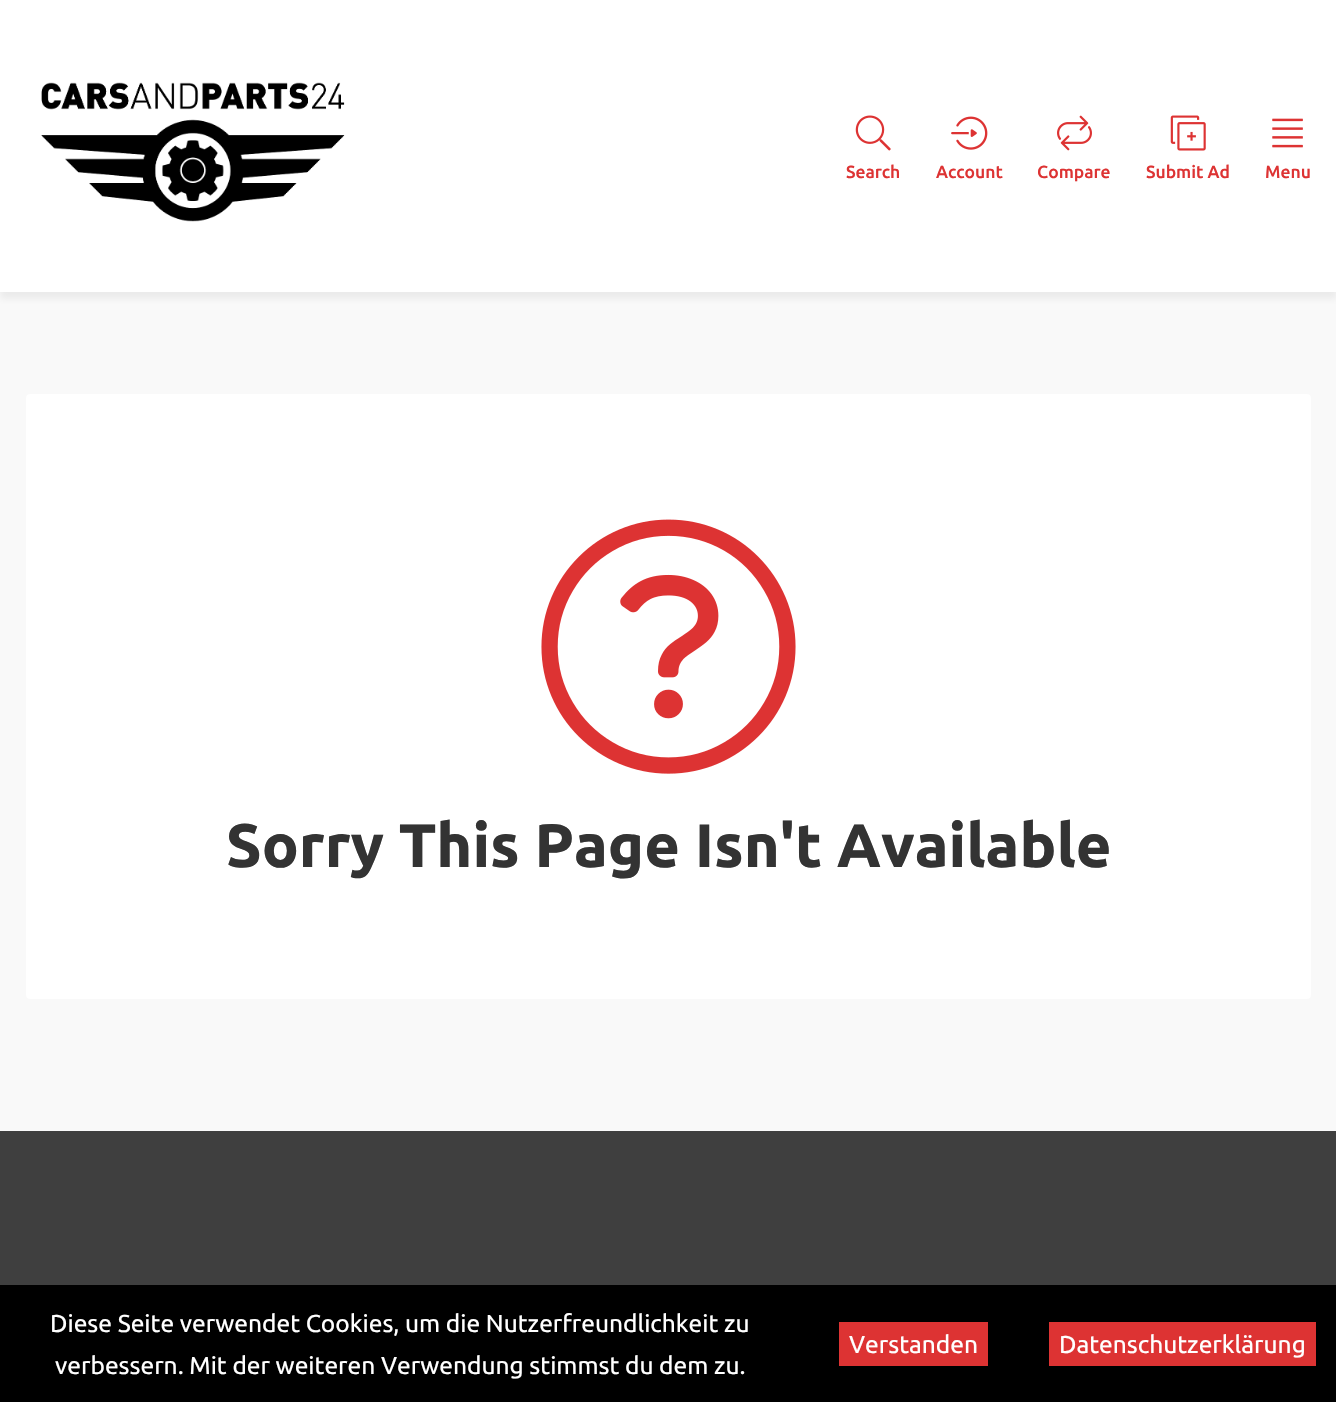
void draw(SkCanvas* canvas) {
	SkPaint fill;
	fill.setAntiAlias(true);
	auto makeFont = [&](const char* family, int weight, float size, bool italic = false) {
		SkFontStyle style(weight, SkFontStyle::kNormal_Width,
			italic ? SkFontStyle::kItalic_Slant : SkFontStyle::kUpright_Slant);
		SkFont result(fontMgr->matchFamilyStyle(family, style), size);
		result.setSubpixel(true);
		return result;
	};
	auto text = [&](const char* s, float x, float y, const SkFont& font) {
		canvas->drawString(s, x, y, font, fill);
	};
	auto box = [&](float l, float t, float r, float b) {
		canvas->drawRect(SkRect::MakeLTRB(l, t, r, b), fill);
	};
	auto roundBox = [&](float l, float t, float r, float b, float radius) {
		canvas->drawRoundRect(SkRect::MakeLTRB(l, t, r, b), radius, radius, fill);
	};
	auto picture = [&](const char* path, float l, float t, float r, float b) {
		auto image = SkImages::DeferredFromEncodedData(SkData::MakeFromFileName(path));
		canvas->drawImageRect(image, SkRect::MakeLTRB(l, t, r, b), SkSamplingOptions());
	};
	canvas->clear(0xFFF9F9F9);
	fill.setColor(0x0F171717);
	fill.setMaskFilter(SkMaskFilter::MakeBlur(kNormal_SkBlurStyle, 3.5f));
	canvas->drawRect(SkRect::MakeLTRB(0, 7, 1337, 299), fill);
	fill.setMaskFilter(nullptr);
	fill.setColor(0xFFFFFFFF);
	box(0, 0, 1336, 292);
	picture("image0.png", 41, 82, 345, 222);
	picture("image1.png", 855, 115, 891, 151);
	picture("image2.png", 951, 116, 988, 150);
	picture("image3.png", 1057, 115, 1092, 151);
	picture("image4.png", 1170, 115, 1206, 151);
	picture("image5.png", 1272, 118, 1303, 148);
	roundBox(26, 394, 1311, 999, 4);
	picture("image6.png", 541, 519, 796, 774);
	fill.setColor(0xFF3F3F3F);
	box(0, 1131, 1336, 1285);
	fill.setColor(0xFF000000);
	box(0, 1285, 1336, 1402);
	fill.setColor(0xFFDD3333);
	box(839, 1322, 988, 1366);
	box(1049, 1322, 1316, 1366);
	auto font1 = makeFont("Ubuntu", 500, 17.5f);
	text("Search", 846, 178, font1);
	text("Account", 936, 178, font1);
	text("Compare", 1037, 178, font1);
	text("Submit Ad", 1146, 178, font1);
	text("Menu", 1265, 178, font1);
	auto font2 = makeFont("Ubuntu", 700, 61.25f);
	fill.setColor(0xFF333333);
	text("Sorry This Page Isn't Available", 226, 867, font2);
	auto font3 = makeFont("Ubuntu", 400, 24.5f);
	fill.setColor(0xFFFFFFFF);
	text("Diese Seite verwendet Cookies, um die Nutzerfreundlichkeit zu", 50, 1332, font3);
	text("verbessern. Mit der weiteren Verwendung stimmst du dem zu.", 55, 1374, font3);
	text("Verstanden", 849, 1353, font3);
	text("Datenschutzerklärung", 1059, 1353, font3);
}
